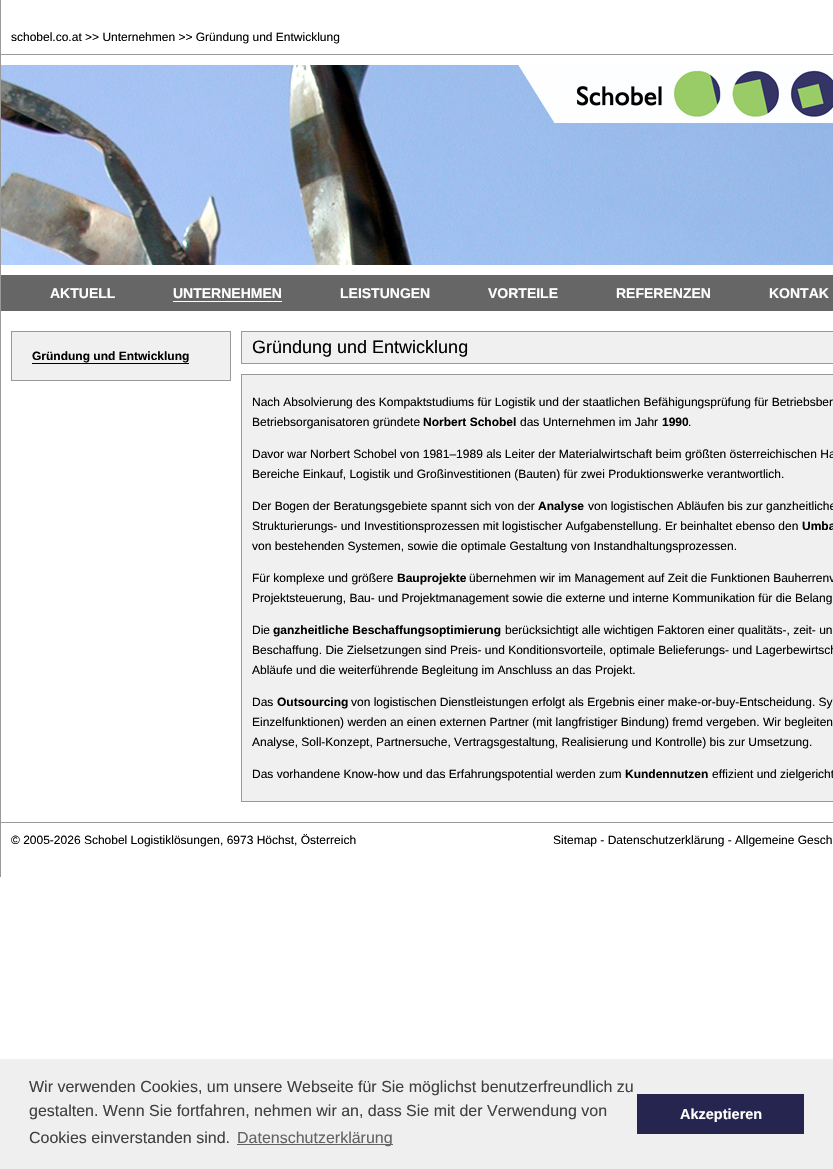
void draw(SkCanvas* canvas) {
	SkPaint fill;
	fill.setAntiAlias(true);
	auto makeFont = [&](const char* family, int weight, float size, bool italic = false) {
		SkFontStyle style(weight, SkFontStyle::kNormal_Width,
			italic ? SkFontStyle::kItalic_Slant : SkFontStyle::kUpright_Slant);
		SkFont result(fontMgr->matchFamilyStyle(family, style), size);
		result.setSubpixel(true);
		return result;
	};
	auto text = [&](const char* s, float x, float y, const SkFont& font) {
		canvas->drawString(s, x, y, font, fill);
	};
	auto box = [&](float l, float t, float r, float b) {
		canvas->drawRect(SkRect::MakeLTRB(l, t, r, b), fill);
	};
	auto picture = [&](const char* path, float l, float t, float r, float b) {
		auto image = SkImages::DeferredFromEncodedData(SkData::MakeFromFileName(path));
		canvas->drawImageRect(image, SkRect::MakeLTRB(l, t, r, b), SkSamplingOptions());
	};
	canvas->clear(0xFFFFFFFF);
	fill.setColor(0xFF999999);
	box(0, 0, 1, 877);
	box(1, 54, 833, 55);
	picture("image0.png", 1, 65, 833, 265);
	picture("image1.png", 518, 65, 833, 123);
	fill.setColor(0xFF666666);
	box(1, 275, 833, 311);
	fill.setColor(0xFFFFFFFF);
	box(173, 301, 282, 302);
	fill.setColor(0xFFF0F0F0);
	canvas->drawRect(SkRect::MakeLTRB(11.5f, 331.5f, 230.5f, 380.5f), fill);
	fill.setStyle(SkPaint::kStroke_Style);
	fill.setStrokeWidth(1);
	fill.setColor(0xFF999999);
	canvas->drawRect(SkRect::MakeLTRB(11.5f, 331.5f, 230.5f, 380.5f), fill);
	fill.setStyle(SkPaint::kFill_Style);
	fill.setColor(0xFF000000);
	box(32, 363, 189, 364);
	fill.setColor(0xFFF0F0F0);
	canvas->drawRect(SkRect::MakeLTRB(241.5f, 331.5f, 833.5f, 363.5f), fill);
	fill.setStyle(SkPaint::kStroke_Style);
	fill.setColor(0xFF999999);
	canvas->drawRect(SkRect::MakeLTRB(241.5f, 331.5f, 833.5f, 363.5f), fill);
	fill.setStyle(SkPaint::kFill_Style);
	fill.setColor(0xFFF0F0F0);
	canvas->drawRect(SkRect::MakeLTRB(241.5f, 374.5f, 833.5f, 801.5f), fill);
	fill.setStyle(SkPaint::kStroke_Style);
	fill.setColor(0xFF999999);
	canvas->drawRect(SkRect::MakeLTRB(241.5f, 374.5f, 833.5f, 801.5f), fill);
	fill.setStyle(SkPaint::kFill_Style);
	box(1, 822, 833, 823);
	fill.setColor(0xFFEFEFEF);
	box(0, 1059, 833, 1169);
	fill.setColor(0xFF636363);
	box(237, 1144, 393, 1145);
	fill.setColor(0xFF25254F);
	box(637, 1094, 804, 1134);
	auto font1 = makeFont("Liberation Sans", 400, 12);
	fill.setColor(0xFF000000);
	text("schobel.co.at >> Unternehmen >> Gründung und Entwicklung", 11, 41, font1);
	auto font2 = makeFont("Liberation Sans", 700, 14);
	fill.setColor(0xFFFFFFFF);
	text("AKTUELL", 50, 298, font2);
	text("UNTERNEHMEN", 173, 298, font2);
	text("LEISTUNGEN", 340, 298, font2);
	text("VORTEILE", 488, 298, font2);
	text("REFERENZEN", 616, 298, font2);
	text("KONTAK", 769, 298, font2);
	auto font3 = makeFont("Liberation Sans", 700, 12);
	fill.setColor(0xFF000000);
	text("Gründung und Entwicklung", 32, 360, font3);
	auto font4 = makeFont("Liberation Sans", 400, 18);
	text("Gründung und Entwicklung", 252, 353, font4);
	text("Nach Absolvierung des Kompaktstudiums für Logistik und der staatlichen Befähigungsprüfung für Betriebsber", 252, 406, font1);
	text("Betriebsorganisatoren gründete", 252, 426, font1);
	text("Norbert Schobel", 423, 426, font3);
	text("das Unternehmen im Jahr", 520, 426, font1);
	text("1990", 662, 426, font3);
	text(".", 688, 426, font1);
	text("Davor war Norbert Schobel von 1981–1989 als Leiter der Materialwirtschaft beim größten österreichischen Ha", 252, 458, font1);
	text("Bereiche Einkauf, Logistik und Großinvestitionen (Bauten) für zwei Produktionswerke verantwortlich.", 252, 478, font1);
	text("Der Bogen der Beratungsgebiete spannt sich von der", 252, 510, font1);
	text("Analyse", 538, 510, font3);
	text("von logistischen Abläufen bis zur ganzheitliche", 588, 510, font1);
	text("Strukturierungs- und Investitionsprozessen mit logistischer Aufgabenstellung. Er beinhaltet ebenso den", 252, 530, font1);
	text("Umba", 802, 530, font3);
	text("von bestehenden Systemen, sowie die optimale Gestaltung von Instandhaltungsprozessen.", 252, 550, font1);
	text("Für komplexe und größere", 252, 582, font1);
	text("Bauprojekte", 397, 582, font3);
	text("übernehmen wir im Management auf Zeit die Funktionen Bauherrenv", 469, 582, font1);
	text("Projektsteuerung, Bau- und Projektmanagement sowie die externe und interne Kommunikation für die Belang", 252, 602, font1);
	text("Die", 252, 634, font1);
	text("ganzheitliche Beschaffungsoptimierung", 273, 634, font3);
	text("berücksichtigt alle wichtigen Faktoren einer qualitäts-, zeit- un", 505, 634, font1);
	text("Beschaffung. Die Zielsetzungen sind Preis- und Konditionsvorteile, optimale Belieferungs- und Lagerbewirtsch", 252, 654, font1);
	text("Abläufe und die weiterführende Begleitung im Anschluss an das Projekt.", 252, 674, font1);
	text("Das", 252, 706, font1);
	text("Outsourcing", 277, 706, font3);
	text("von logistischen Dienstleistungen erfolgt als Ergebnis einer make-or-buy-Entscheidung. Sy", 351, 706, font1);
	text("Einzelfunktionen) werden an einen externen Partner (mit langfristiger Bindung) fremd vergeben. Wir begleiten", 252, 726, font1);
	text("Analyse, Soll-Konzept, Partnersuche, Vertragsgestaltung, Realisierung und Kontrolle) bis zur Umsetzung.", 252, 746, font1);
	text("Das vorhandene Know-how und das Erfahrungspotential werden zum", 252, 778, font1);
	text("Kundennutzen", 625, 778, font3);
	text("effizient und zielgericht", 712, 778, font1);
	text("© 2005-2026 Schobel Logistiklösungen, 6973 Höchst, Österreich", 11, 844, font1);
	text("Sitemap - Datenschutzerklärung - Allgemeine Gesch", 553, 844, font1);
	auto font5 = makeFont("Liberation Sans", 400, 16);
	fill.setColor(0xFF404040);
	text("Wir verwenden Cookies, um unsere Webseite für Sie möglichst benutzerfreundlich zu", 29, 1092, font5);
	text("gestalten. Wenn Sie fortfahren, nehmen wir an, dass Sie mit der Verwendung von", 29, 1116, font5);
	text("Cookies einverstanden sind.", 29, 1143, font5);
	fill.setColor(0xFF636363);
	text("Datenschutzerklärung", 237, 1143, font5);
	auto font6 = makeFont("Liberation Sans", 700, 14.5f);
	fill.setColor(0xFFFFFFFF);
	text("Akzeptieren", 680, 1119, font6);
}
